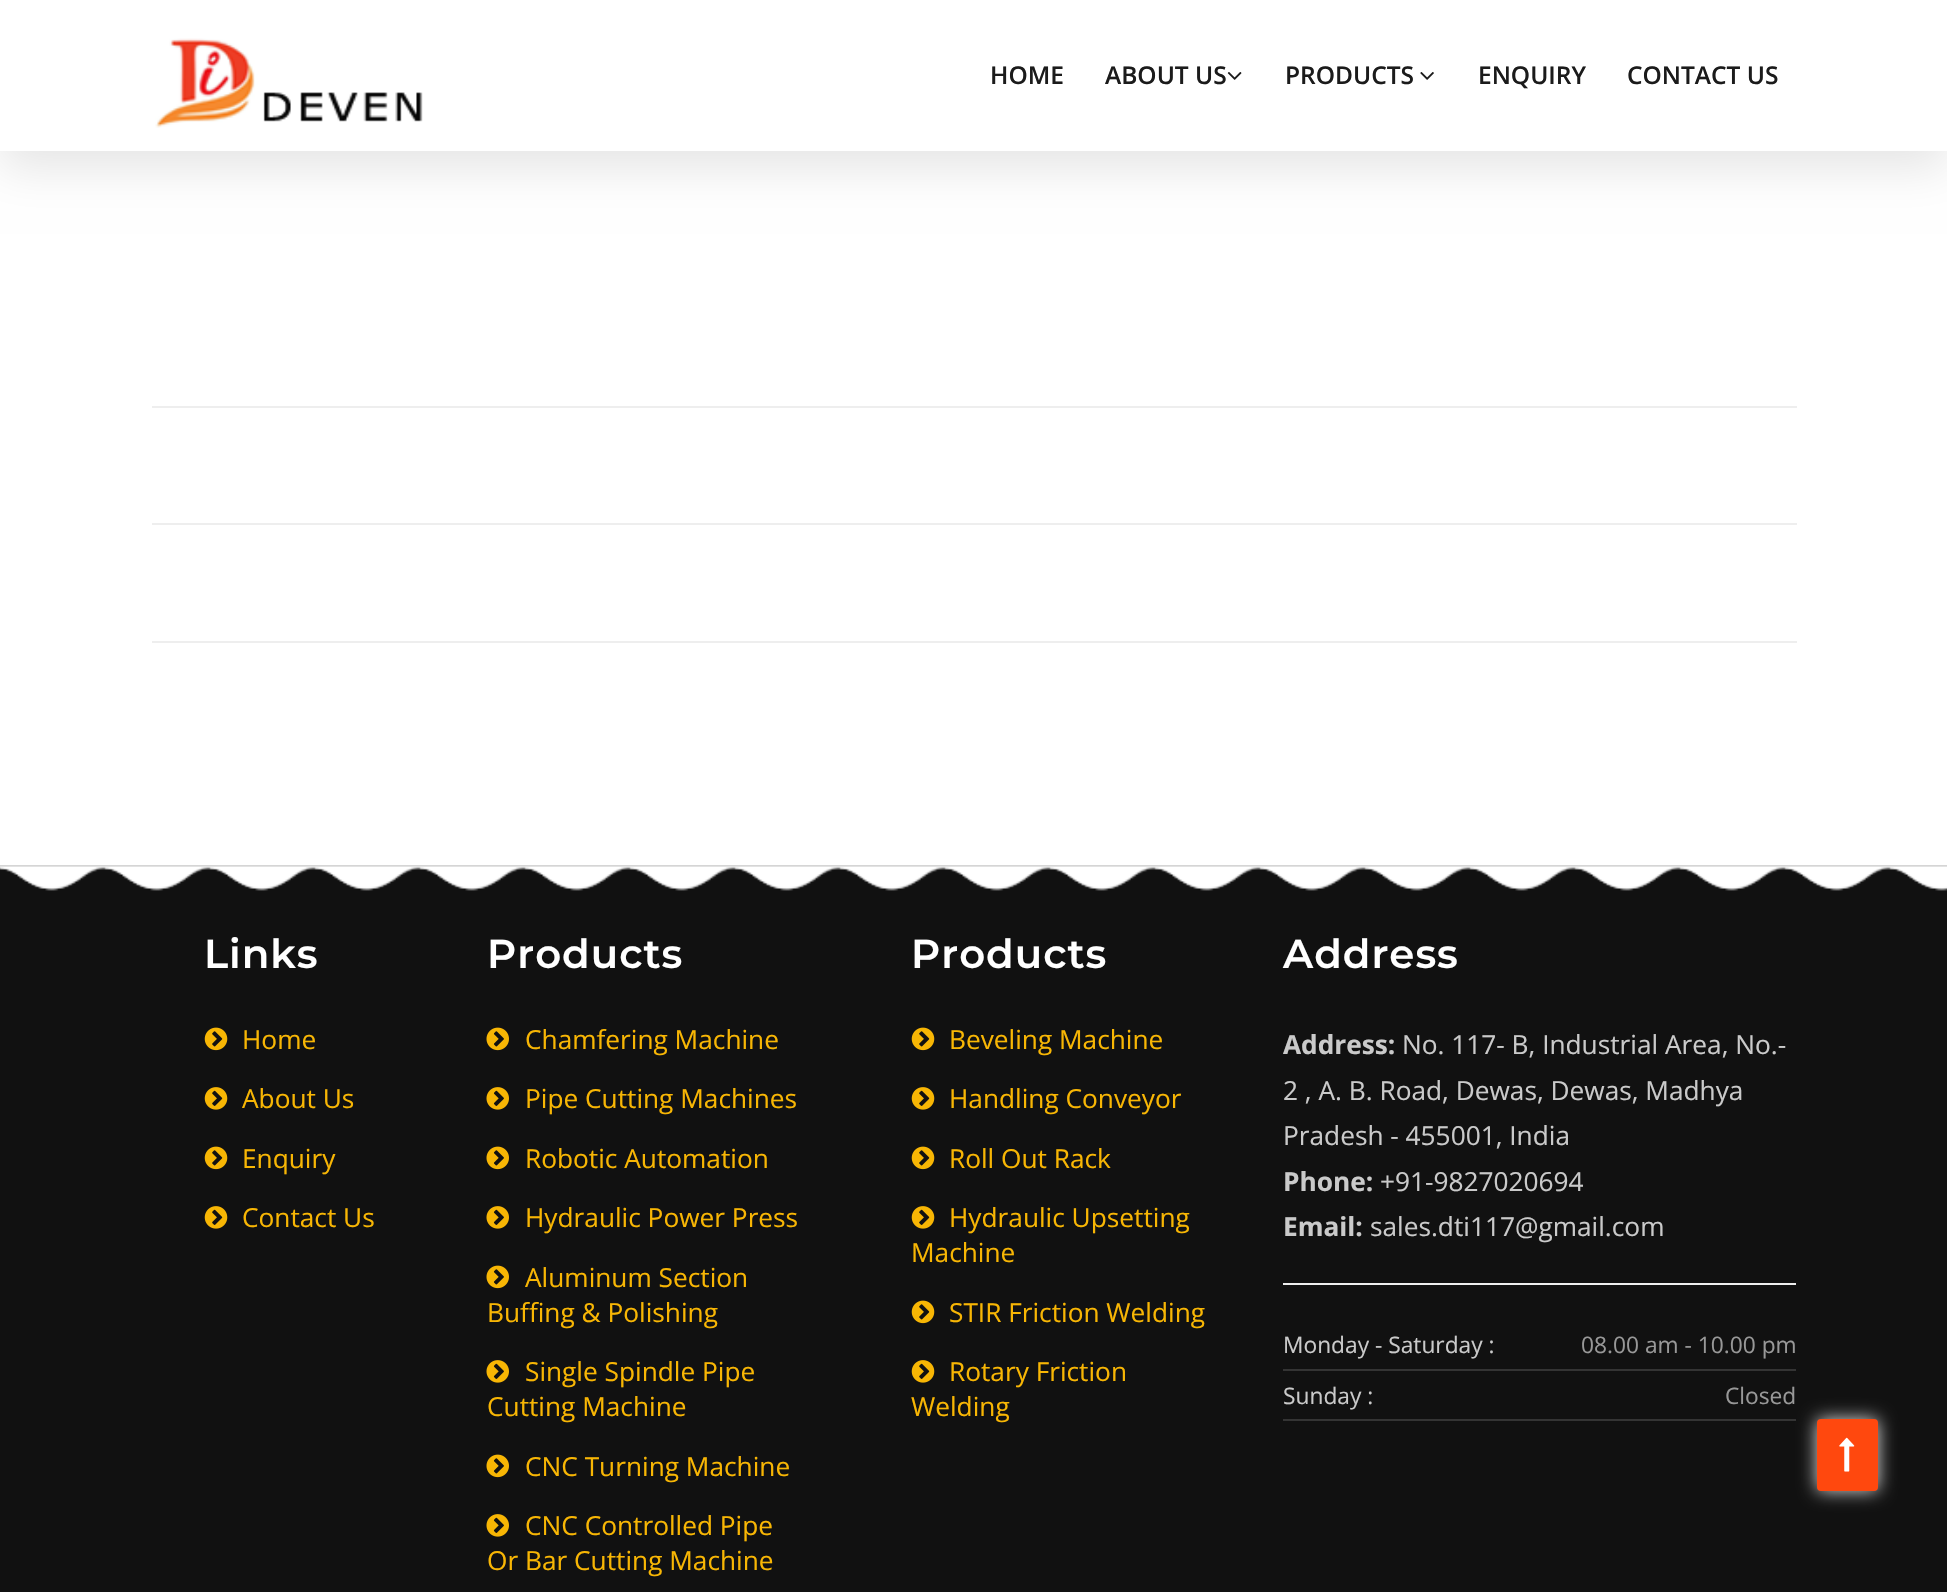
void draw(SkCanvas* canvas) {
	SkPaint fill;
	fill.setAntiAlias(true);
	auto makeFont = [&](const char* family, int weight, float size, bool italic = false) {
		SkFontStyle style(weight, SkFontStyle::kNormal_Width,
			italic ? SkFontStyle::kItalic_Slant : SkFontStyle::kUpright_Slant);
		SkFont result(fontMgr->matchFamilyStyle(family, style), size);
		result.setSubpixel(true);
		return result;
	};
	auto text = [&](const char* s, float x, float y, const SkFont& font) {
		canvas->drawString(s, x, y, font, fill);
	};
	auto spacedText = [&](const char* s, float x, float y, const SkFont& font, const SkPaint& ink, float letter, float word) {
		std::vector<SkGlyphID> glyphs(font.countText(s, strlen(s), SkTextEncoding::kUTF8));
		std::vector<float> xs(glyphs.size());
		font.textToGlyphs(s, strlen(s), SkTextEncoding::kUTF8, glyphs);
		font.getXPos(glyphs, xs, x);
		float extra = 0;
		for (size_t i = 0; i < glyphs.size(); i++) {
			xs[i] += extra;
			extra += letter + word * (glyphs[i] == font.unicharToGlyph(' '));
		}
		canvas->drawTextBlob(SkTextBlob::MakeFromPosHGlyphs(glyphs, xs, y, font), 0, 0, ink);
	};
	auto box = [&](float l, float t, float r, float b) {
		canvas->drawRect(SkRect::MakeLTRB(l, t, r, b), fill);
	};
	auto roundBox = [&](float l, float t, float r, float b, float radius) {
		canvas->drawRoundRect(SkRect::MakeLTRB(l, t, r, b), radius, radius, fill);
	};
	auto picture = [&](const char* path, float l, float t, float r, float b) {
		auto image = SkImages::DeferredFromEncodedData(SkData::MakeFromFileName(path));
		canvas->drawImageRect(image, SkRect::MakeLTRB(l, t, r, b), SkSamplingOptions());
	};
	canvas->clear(0xFFFFFFFF);
	fill.setColor(0x1A000000);
	fill.setMaskFilter(SkMaskFilter::MakeBlur(kNormal_SkBlurStyle, 22));
	canvas->drawRect(SkRect::MakeLTRB(0, 18, 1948, 168), fill);
	fill.setMaskFilter(nullptr);
	fill.setColor(0xFFFFFFFF);
	box(0, 0, 1947, 151);
	picture("image0.png", 155, 38, 423, 128);
	picture("image1.png", 1227, 72, 1242, 80);
	picture("image2.png", 1420, 72, 1434, 80);
	fill.setColor(0xFFEEEEEE);
	box(152, 406, 1797, 408);
	box(152, 523, 1797, 525);
	box(152, 641, 1797, 643);
	fill.setColor(0xFF111111);
	box(0, 898, 1947, 1592);
	picture("image3.png", 0, 865, 1947, 898);
	picture("image4.png", 204, 1027, 228, 1051);
	picture("image5.png", 204, 1087, 228, 1110);
	picture("image4.png", 204, 1146, 228, 1170);
	picture("image5.png", 204, 1206, 228, 1229);
	picture("image6.png", 486, 1027, 509, 1051);
	picture("image7.png", 486, 1087, 509, 1110);
	picture("image6.png", 486, 1146, 509, 1170);
	picture("image7.png", 486, 1206, 509, 1229);
	picture("image6.png", 486, 1265, 509, 1289);
	picture("image7.png", 486, 1360, 509, 1383);
	picture("image6.png", 486, 1454, 509, 1478);
	picture("image7.png", 486, 1514, 509, 1537);
	picture("image4.png", 911, 1027, 935, 1051);
	picture("image5.png", 911, 1087, 935, 1110);
	picture("image4.png", 911, 1146, 935, 1170);
	picture("image5.png", 911, 1206, 935, 1229);
	picture("image4.png", 911, 1300, 935, 1324);
	picture("image5.png", 911, 1360, 935, 1383);
	fill.setColor(0xFFEEEEEE);
	box(1283, 1283, 1796, 1285);
	fill.setColor(0xFF343434);
	box(1283, 1369, 1796, 1371);
	box(1283, 1419, 1796, 1421);
	fill.setColor(0xFFDDDDDD);
	fill.setMaskFilter(SkMaskFilter::MakeBlur(kNormal_SkBlurStyle, 9));
	canvas->drawRoundRect(SkRect::MakeLTRB(1817, 1419, 1878, 1491), 4, 4, fill);
	fill.setMaskFilter(nullptr);
	fill.setColor(0xFFFF480E);
	roundBox(1817, 1419, 1878, 1491, 4);
	picture("image8.png", 1839, 1437, 1855, 1472);
	auto font1 = makeFont("Open Sans", 600, 24.5f);
	fill.setColor(0xFF1B1B1B);
	text("HOME", 990, 84, font1);
	text("ABOUT US", 1105, 84, font1);
	text("PRODUCTS", 1285, 84, font1);
	text("ENQUIRY", 1478, 84, font1);
	text("CONTACT US", 1627, 84, font1);
	auto font2 = makeFont("Montserrat", 600, 40.25f);
	fill.setColor(0xFFFFFFFF);
	spacedText("Links", 204, 968, font2, fill, 1, 0);
	auto font3 = makeFont("Open Sans", 400, 26.25f);
	fill.setColor(0xFFF8B604);
	text("Home", 242, 1049, font3);
	text("About Us", 242, 1108, font3);
	text("Enquiry", 242, 1168, font3);
	text("Contact Us", 242, 1227, font3);
	fill.setColor(0xFFFFFFFF);
	spacedText("Products", 487, 968, font2, fill, 1, 0);
	fill.setColor(0xFFF8B604);
	text("Chamfering Machine", 525, 1049, font3);
	text("Pipe Cutting Machines", 525, 1108, font3);
	text("Robotic Automation", 525, 1168, font3);
	text("Hydraulic Power Press", 525, 1227, font3);
	text("Aluminum Section", 525, 1287, font3);
	text("Buffing & Polishing", 487, 1322, font3);
	text("Single Spindle Pipe", 525, 1381, font3);
	text("Cutting Machine", 487, 1416, font3);
	text("CNC Turning Machine", 525, 1476, font3);
	text("CNC Controlled Pipe", 525, 1535, font3);
	text("Or Bar Cutting Machine", 487, 1570, font3);
	fill.setColor(0xFFFFFFFF);
	spacedText("Products", 911, 968, font2, fill, 1, 0);
	fill.setColor(0xFFF8B604);
	text("Beveling Machine", 949, 1049, font3);
	text("Handling Conveyor", 949, 1108, font3);
	text("Roll Out Rack", 949, 1168, font3);
	text("Hydraulic Upsetting", 949, 1227, font3);
	text("Machine", 911, 1262, font3);
	text("STIR Friction Welding", 949, 1322, font3);
	text("Rotary Friction", 949, 1381, font3);
	text("Welding", 911, 1416, font3);
	fill.setColor(0xFFFFFFFF);
	spacedText("Address", 1283, 968, font2, fill, 1, 0);
	auto font4 = makeFont("Open Sans", 700, 26.25f);
	fill.setColor(0xFFCACACA);
	text("Address:", 1283, 1054, font4);
	text("No. 117- B, Industrial Area, No.-", 1402, 1054, font3);
	text("2 , A. B. Road, Dewas, Dewas, Madhya", 1283, 1100, font3);
	text("Pradesh - 455001, India", 1283, 1145, font3);
	text("Phone:", 1283, 1191, font4);
	text("+91-9827020694", 1380, 1191, font3);
	text("Email:", 1283, 1236, font4);
	text("sales.dti117@gmail.com", 1370, 1236, font3);
	auto font5 = makeFont("Open Sans", 400, 22.75f);
	text("Monday - Saturday :", 1283, 1353, font5);
	fill.setColor(0xFF989898);
	text("08.00 am - 10.00 pm", 1581, 1353, font5);
	fill.setColor(0xFFCACACA);
	text("Sunday :", 1283, 1404, font5);
	fill.setColor(0xFF989898);
	text("Closed", 1725, 1404, font5);
}
